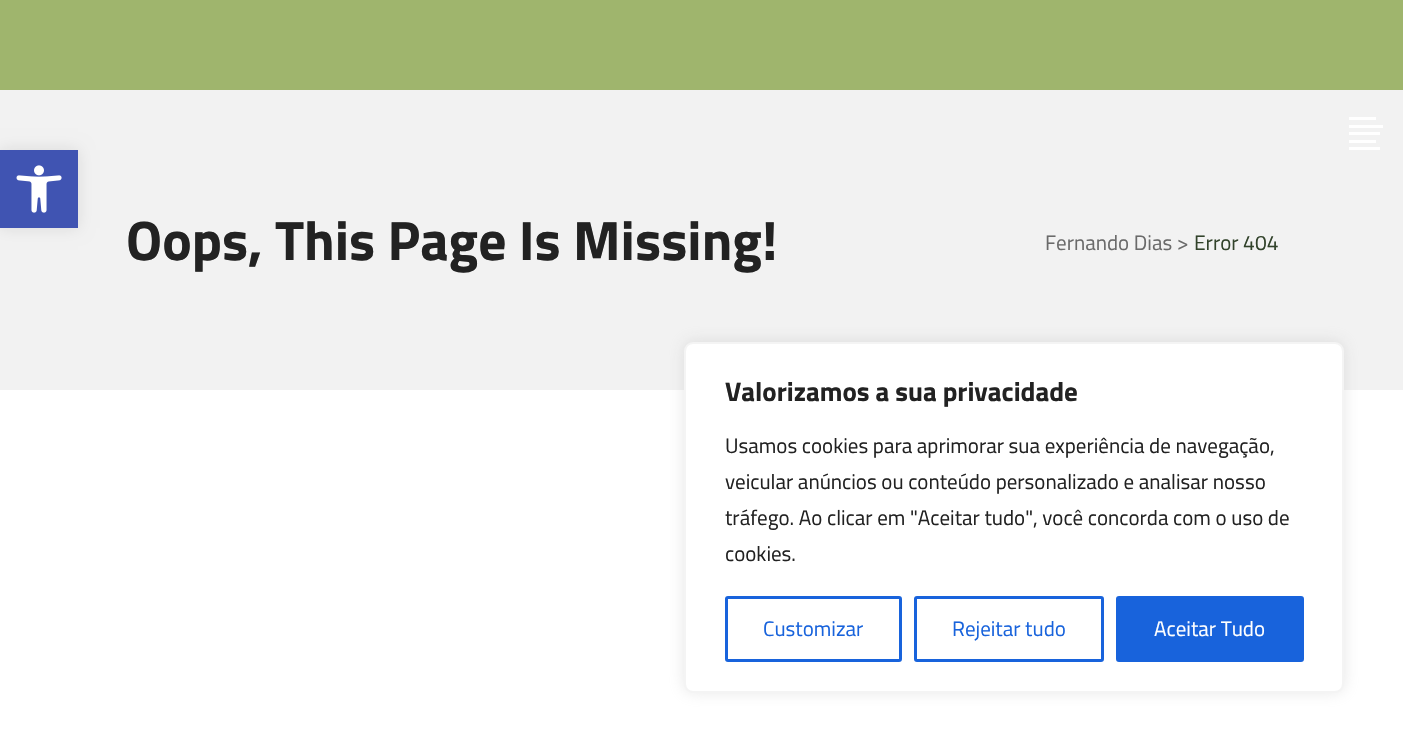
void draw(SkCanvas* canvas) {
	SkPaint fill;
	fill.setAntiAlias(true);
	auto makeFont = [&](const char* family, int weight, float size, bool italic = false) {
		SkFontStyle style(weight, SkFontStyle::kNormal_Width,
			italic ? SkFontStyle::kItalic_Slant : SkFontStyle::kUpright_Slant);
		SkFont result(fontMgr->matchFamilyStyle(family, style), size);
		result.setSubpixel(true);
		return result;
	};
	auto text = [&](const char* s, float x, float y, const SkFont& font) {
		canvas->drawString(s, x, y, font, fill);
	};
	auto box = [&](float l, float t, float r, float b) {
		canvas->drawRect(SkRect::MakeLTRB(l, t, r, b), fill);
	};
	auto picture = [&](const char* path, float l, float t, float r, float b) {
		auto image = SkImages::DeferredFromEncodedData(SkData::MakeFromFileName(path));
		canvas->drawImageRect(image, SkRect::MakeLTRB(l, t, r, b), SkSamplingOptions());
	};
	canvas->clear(0xFFFFFFFF);
	fill.setColor(0xFFF2F2F2);
	box(0, 90, 1403, 390);
	fill.setColor(0x1A000000);
	fill.setMaskFilter(SkMaskFilter::MakeBlur(kNormal_SkBlurStyle, 7.5f));
	canvas->drawRect(SkRect::MakeLTRB(0, 150, 78, 228), fill);
	fill.setMaskFilter(nullptr);
	fill.setColor(0xFF4054B2);
	box(0, 150, 78, 228);
	picture("image0.png", 16, 165, 62, 213);
	fill.setColor(0xFF9FB56D);
	box(0, 0, 1403, 90);
	fill.setColor(0xFFFFFFFF);
	box(1349, 117, 1376, 120);
	box(1349, 125, 1383, 128);
	box(1349, 132, 1380, 135);
	box(1349, 140, 1376, 143);
	box(1349, 147, 1380, 150);
	fill.setColor(0x4DACABAB);
	fill.setMaskFilter(SkMaskFilter::MakeBlur(kNormal_SkBlurStyle, 7.5f));
	canvas->drawRoundRect(SkRect::MakeLTRB(684, 341, 1344, 692), 9, 9, fill);
	fill.setMaskFilter(nullptr);
	fill.setColor(0xFFFFFFFF);
	canvas->drawRoundRect(SkRect::MakeLTRB(685, 343, 1343, 692), 8, 8, fill);
	fill.setStyle(SkPaint::kStroke_Style);
	fill.setStrokeWidth(2);
	fill.setColor(0xFFF4F4F4);
	canvas->drawRoundRect(SkRect::MakeLTRB(685, 343, 1343, 692), 8, 8, fill);
	fill.setStrokeWidth(3);
	fill.setColor(0xFF1863DC);
	canvas->drawRoundRect(SkRect::MakeLTRB(726.5f, 597.5f, 900.5f, 660.5f), 1.5f, 1.5f, fill);
	canvas->drawRoundRect(SkRect::MakeLTRB(915.5f, 597.5f, 1102.5f, 660.5f), 1.5f, 1.5f, fill);
	fill.setStyle(SkPaint::kFill_Style);
	canvas->drawRoundRect(SkRect::MakeLTRB(1117.5f, 597.5f, 1302.5f, 660.5f), 1.5f, 1.5f, fill);
	fill.setStyle(SkPaint::kStroke_Style);
	canvas->drawRoundRect(SkRect::MakeLTRB(1117.5f, 597.5f, 1302.5f, 660.5f), 1.5f, 1.5f, fill);
	auto font1 = makeFont("Titillium Web", 700, 55.5f);
	fill.setStyle(SkPaint::kFill_Style);
	fill.setColor(0xFF222222);
	text("Oops, This Page Is Missing!", 126, 260, font1);
	auto font2 = makeFont("Titillium Web", 400, 21);
	fill.setColor(0xFF6A6A6A);
	text("Fernando Dias >", 1045, 250, font2);
	fill.setColor(0xFF32432B);
	text("Error 404", 1194, 250, font2);
	auto font3 = makeFont("Titillium Web", 700, 27);
	fill.setColor(0xFF222222);
	text("Valorizamos a sua privacidade", 725, 401, font3);
	text("Usamos cookies para aprimorar sua experiência de navegação,", 725, 453, font2);
	text("veicular anúncios ou conteúdo personalizado e analisar nosso", 725, 489, font2);
	text("tráfego. Ao clicar em \"Aceitar tudo\", você concorda com o uso de", 725, 525, font2);
	text("cookies.", 725, 561, font2);
	fill.setColor(0xFF1863DC);
	text("Customizar", 763, 636, font2);
	text("Rejeitar tudo", 952, 636, font2);
	fill.setColor(0xFFFFFFFF);
	text("Aceitar Tudo", 1154, 636, font2);
}
